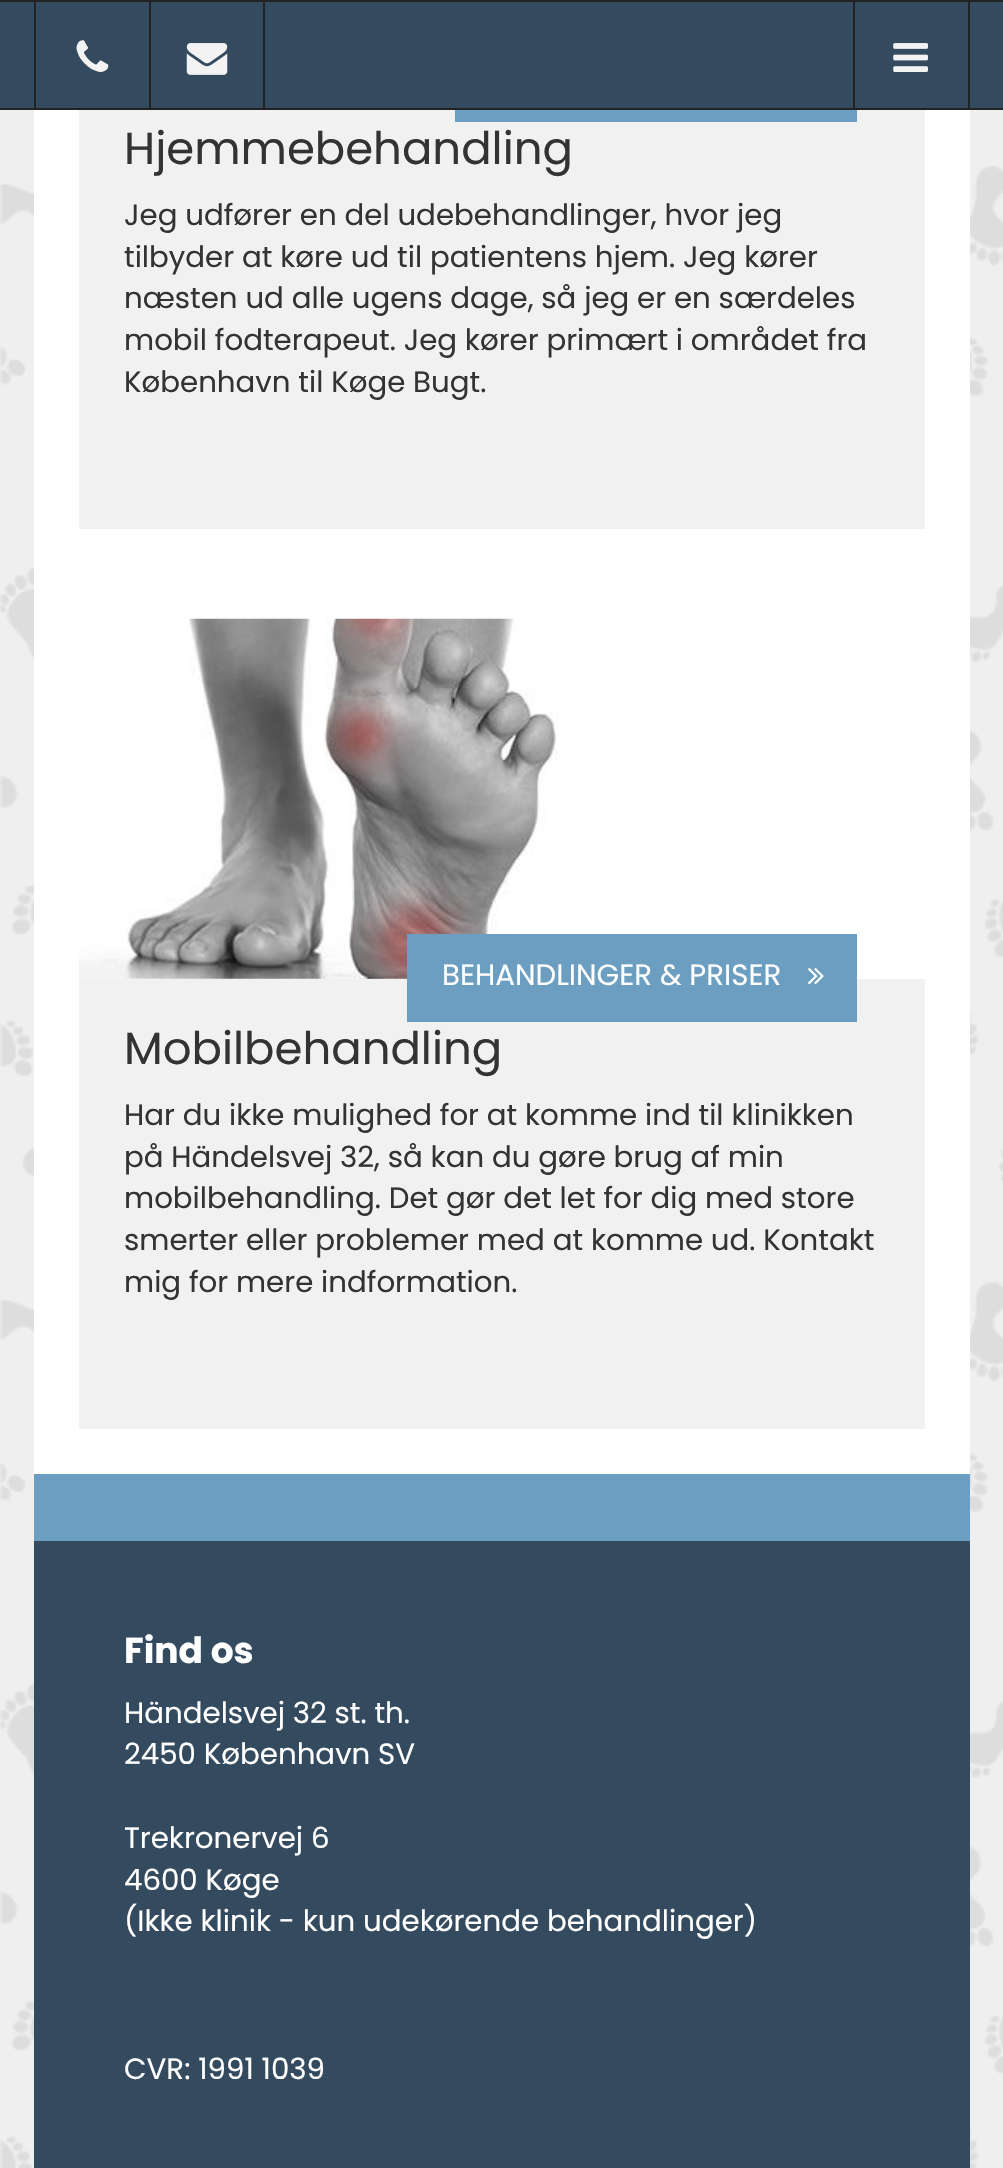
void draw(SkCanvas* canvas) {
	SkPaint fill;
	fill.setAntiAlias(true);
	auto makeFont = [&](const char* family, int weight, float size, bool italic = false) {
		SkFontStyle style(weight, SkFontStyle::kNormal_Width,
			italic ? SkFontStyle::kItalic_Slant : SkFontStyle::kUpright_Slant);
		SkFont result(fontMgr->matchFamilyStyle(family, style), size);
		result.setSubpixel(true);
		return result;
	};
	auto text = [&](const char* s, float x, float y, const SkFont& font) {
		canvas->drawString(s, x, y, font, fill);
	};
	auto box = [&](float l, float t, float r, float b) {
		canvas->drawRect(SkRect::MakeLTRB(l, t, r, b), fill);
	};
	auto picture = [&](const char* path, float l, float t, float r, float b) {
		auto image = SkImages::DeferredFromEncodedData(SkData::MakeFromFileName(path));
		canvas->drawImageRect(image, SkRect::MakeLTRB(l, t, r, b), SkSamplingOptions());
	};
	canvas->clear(0xFFEFEFEF);
	picture("image0.png", 0, 110, 1003, 2168);
	fill.setColor(0xFFFFFFFF);
	box(34, 110, 970, 1474);
	fill.setColor(0xFF344A5E);
	box(0, 2, 1003, 108);
	fill.setColor(0xFF222222);
	box(0, 0, 1003, 2);
	box(0, 108, 1003, 110);
	box(149, 2, 151, 108);
	box(34, 2, 36, 108);
	picture("image1.png", 76, 40, 109, 72);
	box(263, 2, 265, 108);
	picture("image2.png", 186, 43, 228, 75);
	box(968, 2, 970, 108);
	box(853, 2, 855, 108);
	picture("image3.png", 893, 43, 928, 72);
	fill.setColor(0xFFF1F1F1);
	box(79, 110, 925, 529);
	fill.setColor(0xFF6B9EC0);
	box(455, 110, 857, 122);
	picture("image4.png", 79, 618, 752, 979);
	fill.setColor(0xFFF1F1F1);
	box(79, 979, 925, 1429);
	fill.setColor(0xFF6B9EC0);
	box(407, 934, 857, 1022);
	picture("image5.png", 808, 968, 824, 985);
	box(34, 1474, 970, 1541);
	fill.setColor(0xFF344A5E);
	box(34, 1541, 970, 2168);
	auto font1 = makeFont("Poppins", 400, 45);
	fill.setColor(0xFF333333);
	text("Hjemmebehandling", 124, 164, font1);
	auto font2 = makeFont("Poppins", 400, 29.25f);
	text("Jeg udfører en del udebehandlinger, hvor jeg", 124, 225, font2);
	text("tilbyder at køre ud til patientens hjem. Jeg kører", 124, 267, font2);
	text("næsten ud alle ugens dage, så jeg er en særdeles", 124, 308, font2);
	text("mobil fodterapeut. Jeg kører primært i området fra", 124, 350, font2);
	text("København til Køge Bugt.", 124, 392, font2);
	fill.setColor(0xFFFFFFFF);
	text("BEHANDLINGER & PRISER", 442, 985, font2);
	fill.setColor(0xFF333333);
	text("Mobilbehandling", 124, 1064, font1);
	text("Har du ikke mulighed for at komme ind til klinikken", 124, 1125, font2);
	text("på Händelsvej 32, så kan du gøre brug af min", 124, 1167, font2);
	text("mobilbehandling. Det gør det let for dig med store", 124, 1208, font2);
	text("smerter eller problemer med at komme ud. Kontakt", 124, 1250, font2);
	text("mig for mere indformation.", 124, 1292, font2);
	auto font3 = makeFont("Poppins", 700, 36);
	fill.setColor(0xFFFFFFFF);
	text("Find os", 124, 1663, font3);
	text("Händelsvej 32 st. th.", 124, 1723, font2);
	text("2450 København SV", 124, 1764, font2);
	text("Trekronervej 6", 124, 1848, font2);
	text("4600 Køge", 124, 1890, font2);
	text("(Ikke klinik - kun udekørende behandlinger)", 124, 1931, font2);
	text("CVR: 1991 1039", 124, 2079, font2);
}
